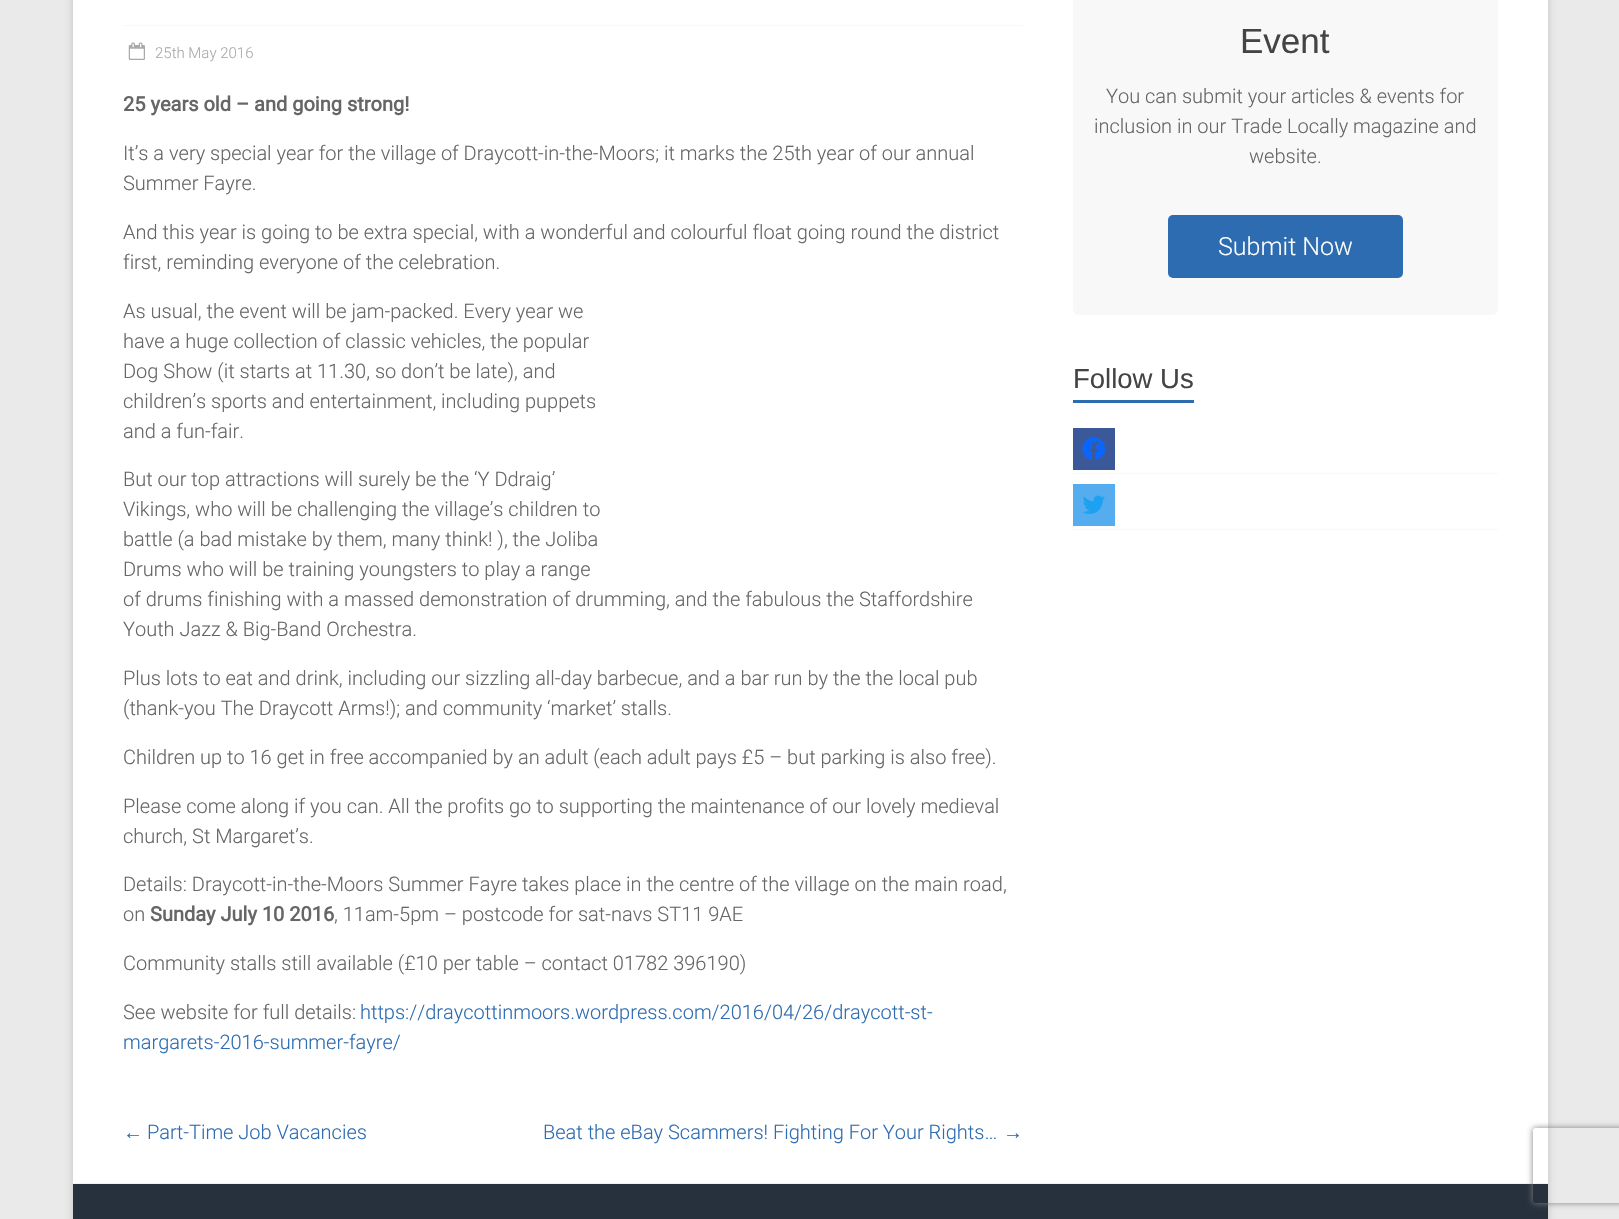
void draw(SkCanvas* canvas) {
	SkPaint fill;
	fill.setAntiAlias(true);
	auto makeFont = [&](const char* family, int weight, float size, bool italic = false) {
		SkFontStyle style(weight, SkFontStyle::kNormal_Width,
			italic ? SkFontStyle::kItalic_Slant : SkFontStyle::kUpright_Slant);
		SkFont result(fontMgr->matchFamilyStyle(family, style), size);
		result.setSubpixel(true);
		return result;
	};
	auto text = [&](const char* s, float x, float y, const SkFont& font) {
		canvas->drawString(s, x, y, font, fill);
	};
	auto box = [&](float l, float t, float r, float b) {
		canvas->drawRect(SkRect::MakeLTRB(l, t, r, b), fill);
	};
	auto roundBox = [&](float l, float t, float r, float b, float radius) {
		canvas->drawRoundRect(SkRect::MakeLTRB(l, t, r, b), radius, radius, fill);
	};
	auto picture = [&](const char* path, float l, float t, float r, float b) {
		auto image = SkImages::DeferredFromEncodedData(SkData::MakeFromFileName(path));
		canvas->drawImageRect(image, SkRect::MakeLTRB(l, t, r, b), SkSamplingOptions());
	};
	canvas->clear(0xFFEAEAEA);
	fill.setColor(0x4D646464);
	fill.setMaskFilter(SkMaskFilter::MakeBlur(kNormal_SkBlurStyle, 4));
	canvas->drawRect(SkRect::MakeLTRB(73, -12, 1548, 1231), fill);
	fill.setMaskFilter(nullptr);
	fill.setColor(0xFFFFFFFF);
	box(73, 0, 1548, 1183);
	fill.setColor(0xFFF8F8F8);
	box(123, 25, 1023, 26);
	picture("image0.png", 128, 42, 145, 60);
	roundBox(1073, -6, 1498, 315, 6);
	fill.setColor(0xFF2D6CB1);
	roundBox(1168, 215, 1403, 278, 5);
	box(1073, 400, 1194, 403);
	fill.setColor(0xFFF8F8F8);
	box(1073, 473, 1498, 474);
	fill.setColor(0xFF3B5998);
	box(1073, 428, 1115, 470);
	picture("image1.png", 1082, 437, 1105, 460);
	fill.setColor(0xFFF8F8F8);
	box(1073, 529, 1498, 530);
	fill.setColor(0xFF55ACEE);
	box(1073, 484, 1115, 526);
	picture("image2.png", 1083, 495, 1105, 514);
	fill.setColor(0xFF27313D);
	box(73, 1184, 1548, 1219);
	fill.setColor(0xFFF2F2F2);
	box(73, 1183, 1548, 1184);
	canvas->save();
	canvas->clipPath(SkPathBuilder(SkPathFillType::kEvenOdd).moveTo(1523, 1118).lineTo(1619, 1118).lineTo(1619, 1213).lineTo(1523, 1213).close().moveTo(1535.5f, 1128).lineTo(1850.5f, 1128).cubicTo(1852, 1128, 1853, 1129, 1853, 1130.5f).lineTo(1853, 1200.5f).cubicTo(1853, 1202, 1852, 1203, 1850.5f, 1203).lineTo(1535.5f, 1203).cubicTo(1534, 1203, 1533, 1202, 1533, 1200.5f).lineTo(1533, 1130.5f).cubicTo(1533, 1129, 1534, 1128, 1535.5f, 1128).close().detach(), true);
	fill.setColor(0xFF808080);
	fill.setMaskFilter(SkMaskFilter::MakeBlur(kNormal_SkBlurStyle, 3));
	canvas->drawRoundRect(SkRect::MakeLTRB(1533, 1128, 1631, 1203), 2.5f, 2.5f, fill);
	fill.setMaskFilter(nullptr);
	canvas->restore();
	auto font1 = makeFont("Roboto", 300, 15);
	fill.setColor(0xFFAAAAAA);
	text("25th May 2016", 155, 58, font1);
	auto font2 = makeFont("Roboto", 700, 20);
	fill.setColor(0xFF666666);
	text("25 years old – and going strong!", 123, 111, font2);
	auto font3 = makeFont("Roboto", 300, 20);
	text("It’s a very special year for the village of Draycott-in-the-Moors; it marks the 25th year of our annual", 123, 160, font3);
	text("Summer Fayre.", 123, 190, font3);
	text("And this year is going to be extra special, with a wonderful and colourful float going round the district", 123, 239, font3);
	text("first, reminding everyone of the celebration.", 123, 269, font3);
	text("As usual, the event will be jam-packed. Every year we", 123, 318, font3);
	text("have a huge collection of classic vehicles, the popular", 123, 348, font3);
	text("Dog Show (it starts at 11.30, so don’t be late), and", 123, 378, font3);
	text("children’s sports and entertainment, including puppets", 123, 408, font3);
	text("and a fun-fair.", 123, 438, font3);
	text("But our top attractions will surely be the ‘Y Ddraig’", 123, 486, font3);
	text("Vikings, who will be challenging the village’s children to", 123, 516, font3);
	text("battle (a bad mistake by them, many think! ), the Joliba", 123, 546, font3);
	text("Drums who will be training youngsters to play a range", 123, 576, font3);
	text("of drums finishing with a massed demonstration of drumming, and the fabulous the Staffordshire", 123, 606, font3);
	text("Youth Jazz & Big-Band Orchestra.", 123, 636, font3);
	text("Plus lots to eat and drink, including our sizzling all-day barbecue, and a bar run by the the local pub", 123, 685, font3);
	text("(thank-you The Draycott Arms!); and community ‘market’ stalls.", 123, 715, font3);
	text("Children up to 16 get in free accompanied by an adult (each adult pays £5 – but parking is also free).", 123, 764, font3);
	text("Please come along if you can. All the profits go to supporting the maintenance of our lovely medieval", 123, 813, font3);
	text("church, St Margaret’s.", 123, 843, font3);
	text("Details: Draycott-in-the-Moors Summer Fayre takes place in the centre of the village on the main road,", 123, 891, font3);
	text("on", 123, 921, font3);
	text("Sunday July 10 2016", 150, 921, font2);
	text(", 11am-5pm – postcode for sat-navs ST11 9AE", 334, 921, font3);
	text("Community stalls still available (£10 per table – contact 01782 396190)", 123, 970, font3);
	text("See website for full details:", 123, 1019, font3);
	fill.setColor(0xFF2D6CB1);
	text("https://draycottinmoors.wordpress.com/2016/04/26/draycott-st-", 360, 1019, font3);
	text("margarets-2016-summer-fayre/", 123, 1049, font3);
	auto font4 = makeFont("Liberation Sans", 400, 20);
	text("←", 123, 1139, font4);
	text("Part-Time Job Vacancies", 147, 1139, font3);
	text("Beat the eBay Scammers! Fighting For Your Rights…", 543, 1139, font3);
	text("→", 1003, 1139, font4);
	auto font5 = makeFont("Liberation Sans", 400, 35);
	fill.setColor(0xFF444444);
	text("Event", 1240, 53, font5);
	fill.setColor(0xFF666666);
	text("You can submit your articles & events for", 1106, 103, font3);
	text("inclusion in our Trade Locally magazine and", 1094, 133, font3);
	text("website.", 1249, 163, font3);
	auto font6 = makeFont("Roboto", 300, 25);
	fill.setColor(0xFFFFFFFF);
	text("Submit Now", 1218, 255, font6);
	auto font7 = makeFont("Liberation Sans", 400, 27.5f);
	fill.setColor(0xFF444444);
	text("Follow Us", 1073, 388, font7);
}
